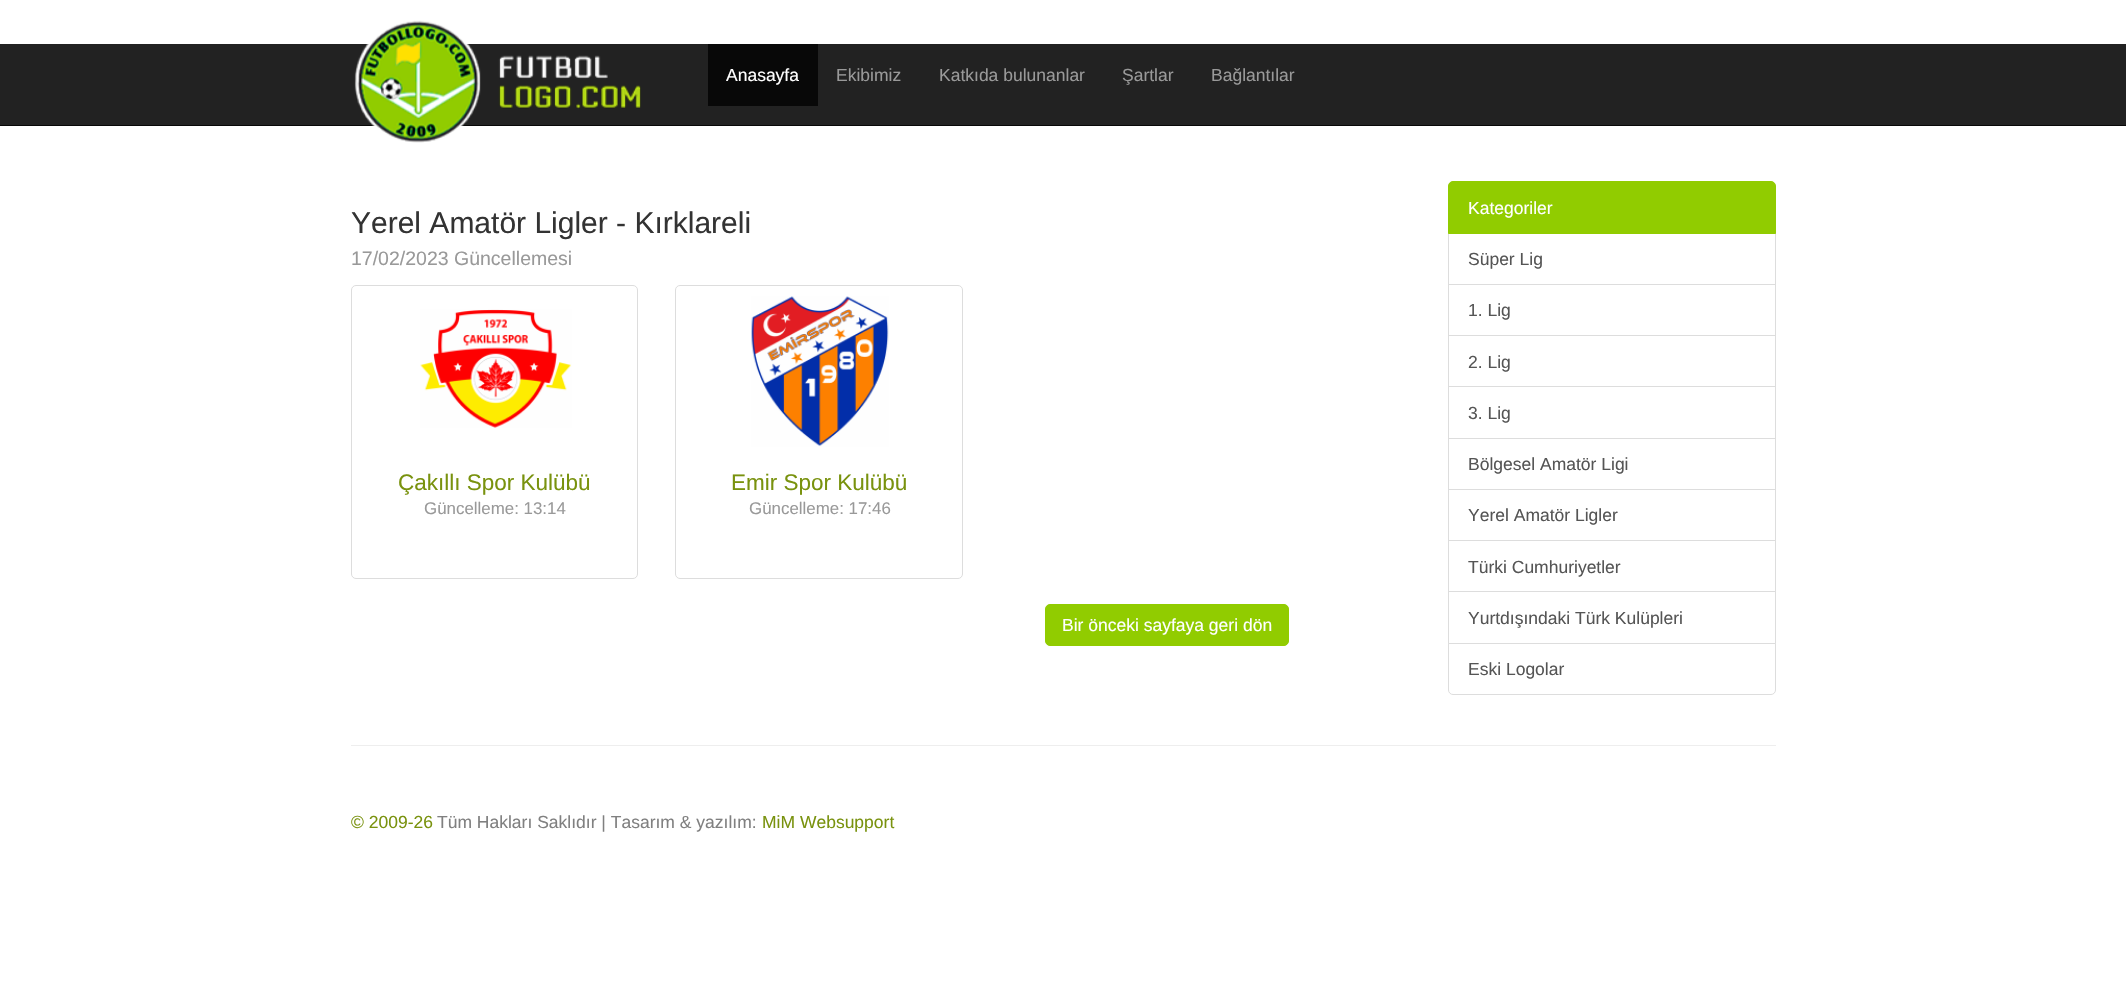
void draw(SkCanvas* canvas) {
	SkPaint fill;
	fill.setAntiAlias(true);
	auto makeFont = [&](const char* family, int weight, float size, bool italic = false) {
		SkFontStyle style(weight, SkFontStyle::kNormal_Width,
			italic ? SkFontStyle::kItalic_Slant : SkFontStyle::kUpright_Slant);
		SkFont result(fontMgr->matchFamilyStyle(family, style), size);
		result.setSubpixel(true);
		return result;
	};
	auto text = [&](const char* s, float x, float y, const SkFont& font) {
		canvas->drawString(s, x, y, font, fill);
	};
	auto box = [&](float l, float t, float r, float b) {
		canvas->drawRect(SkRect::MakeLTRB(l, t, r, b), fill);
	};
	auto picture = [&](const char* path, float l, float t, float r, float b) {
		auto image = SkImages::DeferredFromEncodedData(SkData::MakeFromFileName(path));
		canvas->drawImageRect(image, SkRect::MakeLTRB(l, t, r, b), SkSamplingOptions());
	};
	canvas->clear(0xFFFFFFFF);
	fill.setColor(0xFF222222);
	box(0, 44, 2126, 125);
	fill.setColor(0xFF080808);
	box(0, 125, 2126, 126);
	picture("image0.png", 354, 20, 641, 143);
	box(708, 44, 818, 106);
	fill.setStyle(SkPaint::kStroke_Style);
	fill.setStrokeWidth(1);
	fill.setColor(0xFFDDDDDD);
	canvas->drawRoundRect(SkRect::MakeLTRB(351.5f, 285.5f, 637.5f, 578.5f), 4.5f, 4.5f, fill);
	picture("image1.png", 420, 309, 572, 428);
	canvas->drawRoundRect(SkRect::MakeLTRB(675.5f, 285.5f, 962.5f, 578.5f), 4.5f, 4.5f, fill);
	picture("image2.png", 751, 296, 889, 447);
	fill.setStyle(SkPaint::kFill_Style);
	fill.setColor(0xFF91CC00);
	canvas->drawRoundRect(SkRect::MakeLTRB(1045.5f, 604.5f, 1288.5f, 645.5f), 4.5f, 4.5f, fill);
	fill.setStyle(SkPaint::kStroke_Style);
	canvas->drawRoundRect(SkRect::MakeLTRB(1045.5f, 604.5f, 1288.5f, 645.5f), 4.5f, 4.5f, fill);
	fill.setColor(0xFFDDDDDD);
	canvas->drawRect(SkRect::MakeLTRB(1448.5f, 233.5f, 1775.5f, 284.5f), fill);
	fill.setStyle(SkPaint::kFill_Style);
	fill.setColor(0xFF91CC00);
	canvas->drawPath(SkPathBuilder().moveTo(1453, 181.5f).lineTo(1771, 181.5f).cubicTo(1773.5f, 181.5f, 1775.5f, 183.5f, 1775.5f, 186).lineTo(1775.5f, 233.5f).lineTo(1448.5f, 233.5f).lineTo(1448.5f, 186).cubicTo(1448.5f, 183.5f, 1450.5f, 181.5f, 1453, 181.5f).close().detach(), fill);
	fill.setStyle(SkPaint::kStroke_Style);
	canvas->drawPath(SkPathBuilder().moveTo(1453, 181.5f).lineTo(1771, 181.5f).cubicTo(1773.5f, 181.5f, 1775.5f, 183.5f, 1775.5f, 186).lineTo(1775.5f, 233.5f).lineTo(1448.5f, 233.5f).lineTo(1448.5f, 186).cubicTo(1448.5f, 183.5f, 1450.5f, 181.5f, 1453, 181.5f).close().detach(), fill);
	fill.setColor(0xFFDDDDDD);
	canvas->drawRect(SkRect::MakeLTRB(1448.5f, 284.5f, 1775.5f, 335.5f), fill);
	canvas->drawRect(SkRect::MakeLTRB(1448.5f, 335.5f, 1775.5f, 387.5f), fill);
	fill.setStyle(SkPaint::kFill_Style);
	fill.setColor(0xFFFFFFFF);
	box(1449, 387, 1775, 388);
	fill.setStyle(SkPaint::kStroke_Style);
	fill.setColor(0xFFDDDDDD);
	canvas->drawRect(SkRect::MakeLTRB(1448.5f, 386.5f, 1775.5f, 438.5f), fill);
	canvas->drawRect(SkRect::MakeLTRB(1448.5f, 438.5f, 1775.5f, 489.5f), fill);
	canvas->drawRect(SkRect::MakeLTRB(1448.5f, 489.5f, 1775.5f, 540.5f), fill);
	canvas->drawRect(SkRect::MakeLTRB(1448.5f, 540.5f, 1775.5f, 592.5f), fill);
	fill.setStyle(SkPaint::kFill_Style);
	fill.setColor(0xFFFFFFFF);
	box(1449, 592, 1775, 593);
	fill.setStyle(SkPaint::kStroke_Style);
	fill.setColor(0xFFDDDDDD);
	canvas->drawRect(SkRect::MakeLTRB(1448.5f, 591.5f, 1775.5f, 643.5f), fill);
	fill.setStyle(SkPaint::kFill_Style);
	fill.setColor(0xFFFFFFFF);
	canvas->drawPath(SkPathBuilder().moveTo(1448.5f, 643.5f).lineTo(1775.5f, 643.5f).lineTo(1775.5f, 690).cubicTo(1775.5f, 692.5f, 1773.5f, 694.5f, 1771, 694.5f).lineTo(1453, 694.5f).cubicTo(1450.5f, 694.5f, 1448.5f, 692.5f, 1448.5f, 690).close().detach(), fill);
	fill.setStyle(SkPaint::kStroke_Style);
	fill.setColor(0xFFDDDDDD);
	canvas->drawPath(SkPathBuilder().moveTo(1448.5f, 643.5f).lineTo(1775.5f, 643.5f).lineTo(1775.5f, 690).cubicTo(1775.5f, 692.5f, 1773.5f, 694.5f, 1771, 694.5f).lineTo(1453, 694.5f).cubicTo(1450.5f, 694.5f, 1448.5f, 692.5f, 1448.5f, 690).close().detach(), fill);
	fill.setStyle(SkPaint::kFill_Style);
	fill.setColor(0xFFEEEEEE);
	box(351, 745, 1776, 746);
	auto font1 = makeFont("Liberation Sans", 400, 17.5f);
	fill.setColor(0xFFFFFFFF);
	text("Anasayfa", 726, 81, font1);
	fill.setColor(0xFF999999);
	text("Ekibimiz", 836, 81, font1);
	text("Katkıda bulunanlar", 939, 81, font1);
	text("Şartlar", 1122, 81, font1);
	text("Bağlantılar", 1211, 81, font1);
	auto font2 = makeFont("Liberation Sans", 400, 30);
	fill.setColor(0xFF333333);
	text("Yerel Amatör Ligler - Kırklareli", 351, 233, font2);
	auto font3 = makeFont("Liberation Sans", 400, 19.5f);
	fill.setColor(0xFF999999);
	text("17/02/2023 Güncellemesi", 351, 265, font3);
	auto font4 = makeFont("Liberation Sans", 400, 22.5f);
	fill.setColor(0xFF79920E);
	text("Çakıllı Spor Kulübü", 398, 490, font4);
	auto font5 = makeFont("Liberation Sans", 400, 16.9f);
	fill.setColor(0xFF999999);
	text("Güncelleme: 13:14", 424, 514, font5);
	fill.setColor(0xFF79920E);
	text("Emir Spor Kulübü", 731, 490, font4);
	fill.setColor(0xFF999999);
	text("Güncelleme: 17:46", 749, 514, font5);
	fill.setColor(0xFFFFFFFF);
	text("Bir önceki sayfaya geri dön", 1062, 631, font1);
	text("Kategoriler", 1468, 214, font1);
	fill.setColor(0xFF555555);
	text("Süper Lig", 1468, 265, font1);
	text("1. Lig", 1468, 316, font1);
	text("2. Lig", 1468, 368, font1);
	text("3. Lig", 1468, 419, font1);
	text("Bölgesel Amatör Ligi", 1468, 470, font1);
	text("Yerel Amatör Ligler", 1468, 521, font1);
	text("Türki Cumhuriyetler", 1468, 573, font1);
	text("Yurtdışındaki Türk Kulüpleri", 1468, 624, font1);
	text("Eski Logolar", 1468, 675, font1);
	fill.setColor(0xFF79920E);
	text("© 2009-26", 351, 828, font1);
	fill.setColor(0xFF808080);
	text("Tüm Hakları Saklıdır | Tasarım & yazılım:", 437, 828, font1);
	fill.setColor(0xFF79920E);
	text("MiM Websupport", 762, 828, font1);
}
